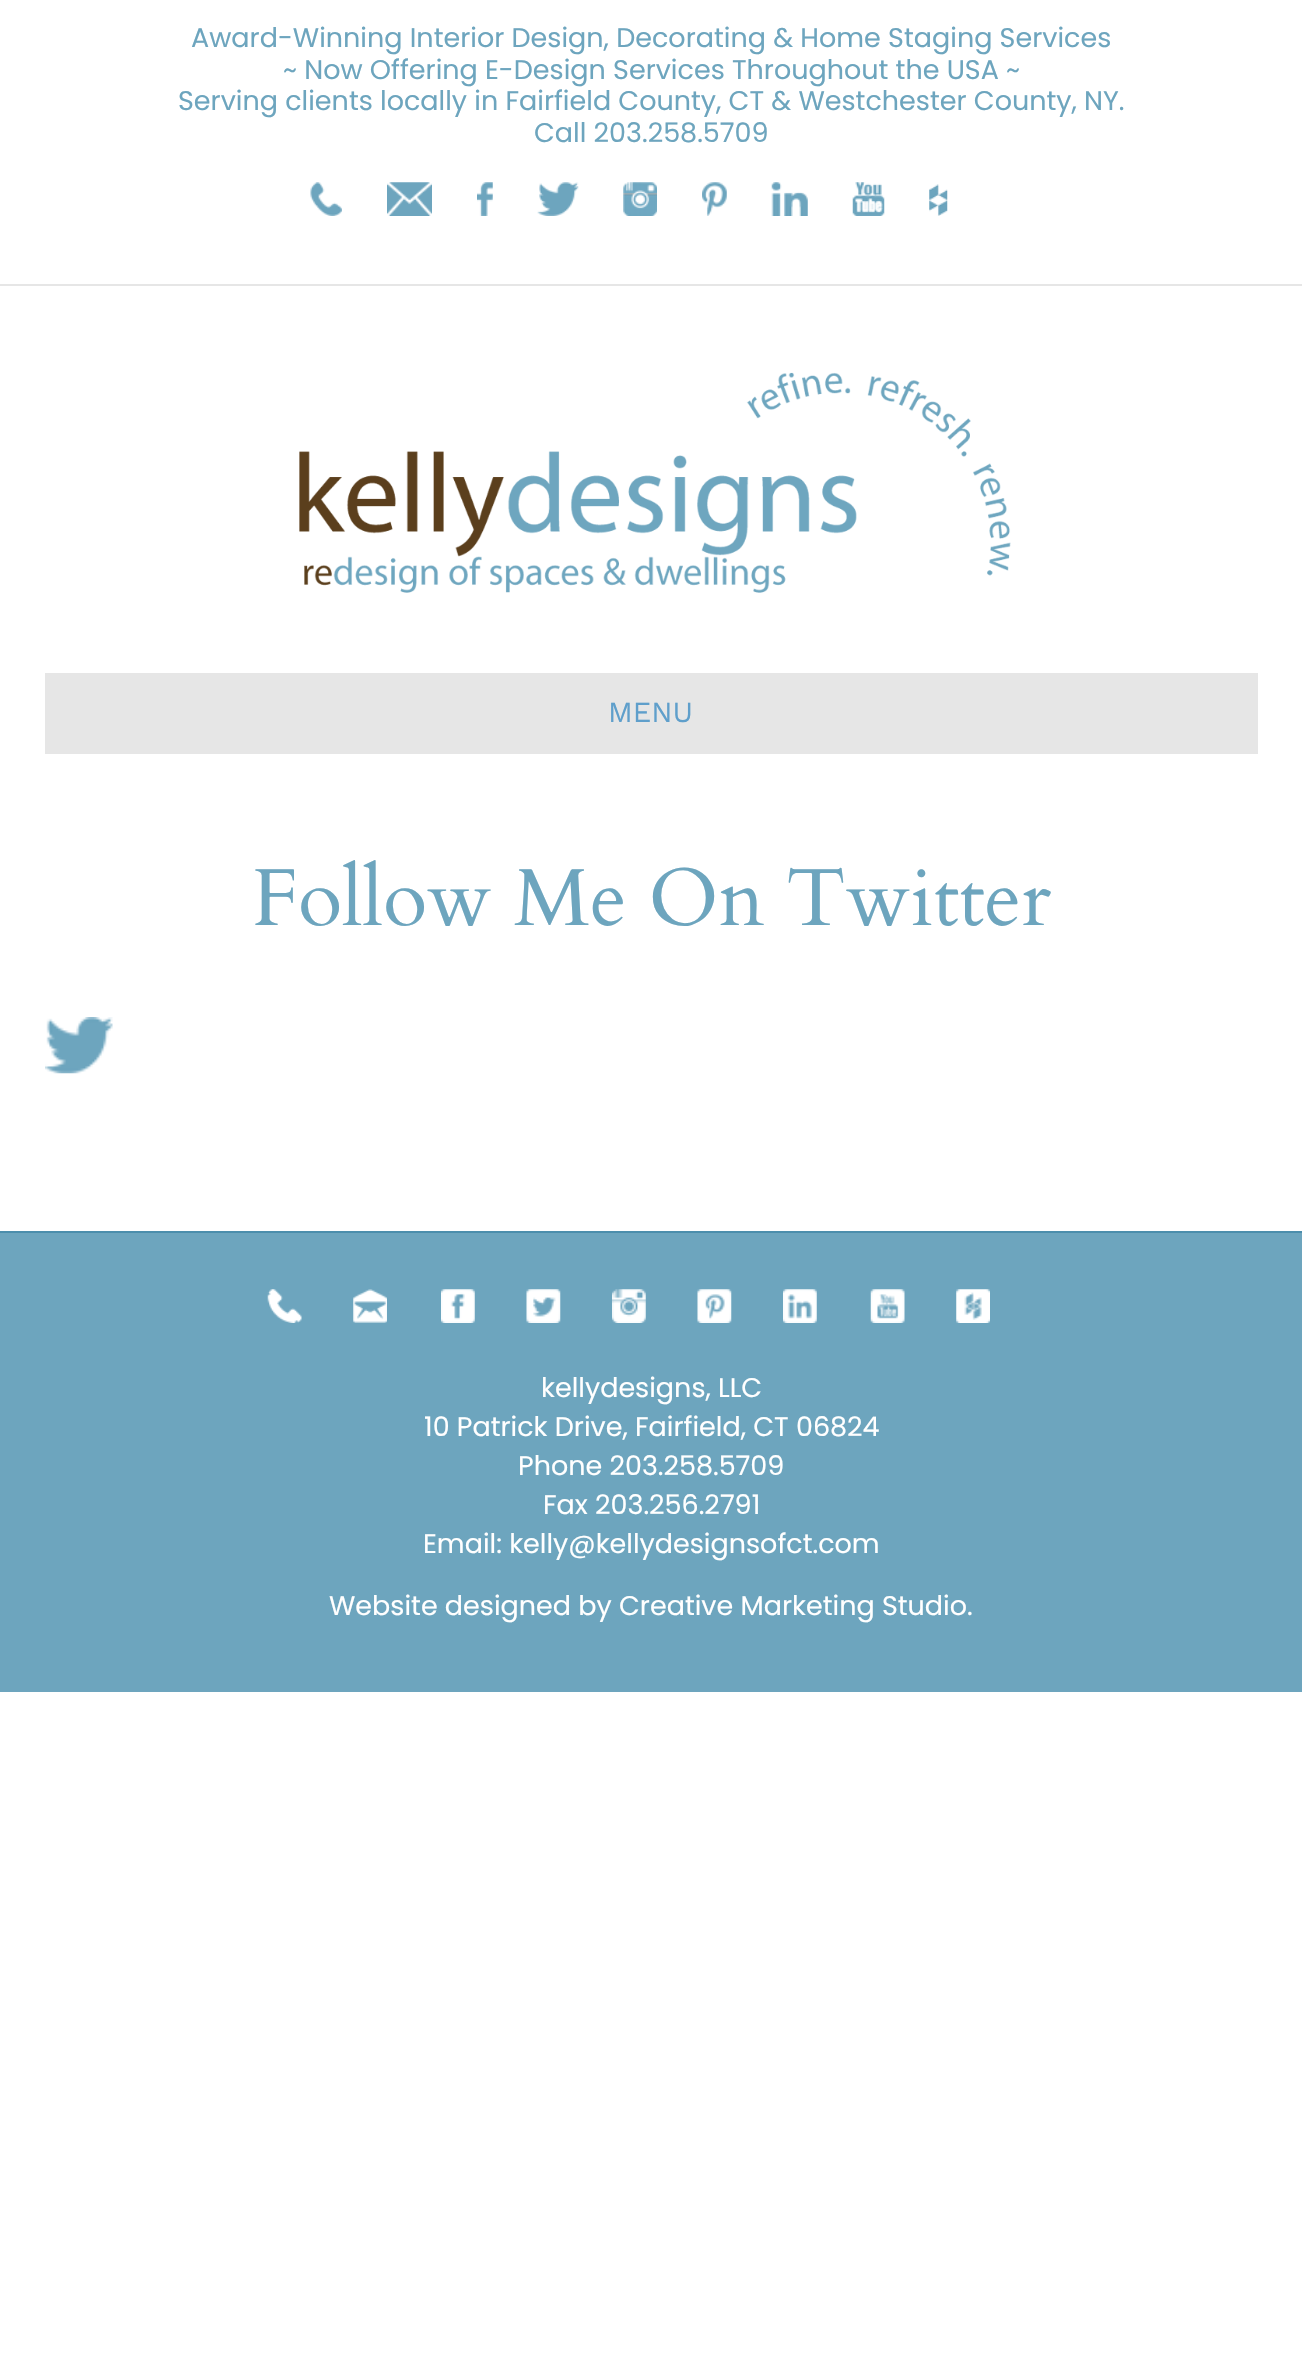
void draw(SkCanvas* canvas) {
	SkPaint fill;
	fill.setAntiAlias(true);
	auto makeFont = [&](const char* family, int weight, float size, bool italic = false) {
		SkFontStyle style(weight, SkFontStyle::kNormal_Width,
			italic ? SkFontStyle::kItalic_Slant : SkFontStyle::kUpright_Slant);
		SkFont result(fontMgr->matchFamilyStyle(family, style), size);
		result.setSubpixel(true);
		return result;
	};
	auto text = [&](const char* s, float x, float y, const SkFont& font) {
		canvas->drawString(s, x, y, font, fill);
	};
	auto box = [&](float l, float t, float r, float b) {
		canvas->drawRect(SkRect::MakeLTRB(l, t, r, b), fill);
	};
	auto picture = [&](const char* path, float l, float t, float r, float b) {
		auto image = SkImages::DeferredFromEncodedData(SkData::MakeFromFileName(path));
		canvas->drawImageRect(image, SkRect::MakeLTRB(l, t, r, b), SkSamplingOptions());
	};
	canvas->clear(0xFFFFFFFF);
	fill.setColor(0xFFE6E6E6);
	box(0, 284, 1302, 286);
	picture("image0.png", 310, 182, 342, 216);
	picture("image1.png", 387, 182, 432, 216);
	picture("image2.png", 477, 182, 493, 216);
	picture("image3.png", 537, 182, 579, 216);
	picture("image4.png", 623, 182, 657, 216);
	picture("image5.png", 702, 182, 727, 216);
	picture("image6.png", 771, 182, 808, 216);
	picture("image7.png", 852, 182, 885, 216);
	picture("image8.png", 929, 184, 948, 216);
	picture("image9.png", 299, 372, 1011, 593);
	box(45, 673, 1258, 754);
	picture("image10.png", 45, 1017, 113, 1074);
	fill.setColor(0xFF6DA5BE);
	box(0, 1233, 1302, 1692);
	fill.setColor(0xFF4C8EAC);
	box(0, 1231, 1302, 1233);
	picture("image11.png", 267, 1289, 302, 1323);
	picture("image12.png", 353, 1289, 387, 1323);
	picture("image13.png", 441, 1289, 475, 1323);
	picture("image14.png", 526, 1289, 561, 1323);
	picture("image15.png", 612, 1289, 646, 1323);
	picture("image16.png", 697, 1289, 732, 1323);
	picture("image17.png", 783, 1289, 817, 1323);
	picture("image18.png", 870, 1289, 905, 1323);
	picture("image19.png", 956, 1289, 990, 1323);
	auto font1 = makeFont("Poppins", 400, 27);
	fill.setColor(0xFF6DA5BE);
	text("Award-Winning Interior Design, Decorating & Home Staging Services", 191, 47, font1);
	text("~ Now Offering E-Design Services Throughout the USA ~", 283, 79, font1);
	text("Serving clients locally in Fairfield County, CT & Westchester County, NY.", 178, 110, font1);
	text("Call 203.258.5709", 534, 142, font1);
	auto font2 = makeFont("Work Sans", 400, 29);
	fill.setColor(0xFF5F9FCB);
	text("MENU", 608, 722, font2);
	auto font3 = makeFont("Cardo", 400, 81);
	fill.setColor(0xFF6DA5BE);
	text("Follow Me On Twitter", 252, 925, font3);
	fill.setColor(0xFFFFFFFF);
	text("kellydesigns, LLC", 541, 1397, font1);
	text("10 Patrick Drive, Fairfield, CT 06824", 424, 1436, font1);
	text("Phone 203.258.5709", 518, 1475, font1);
	text("Fax 203.256.2791", 543, 1514, font1);
	text("Email: kelly@kellydesignsofct.com", 423, 1553, font1);
	text("Website designed by Creative Marketing Studio.", 329, 1615, font1);
}
